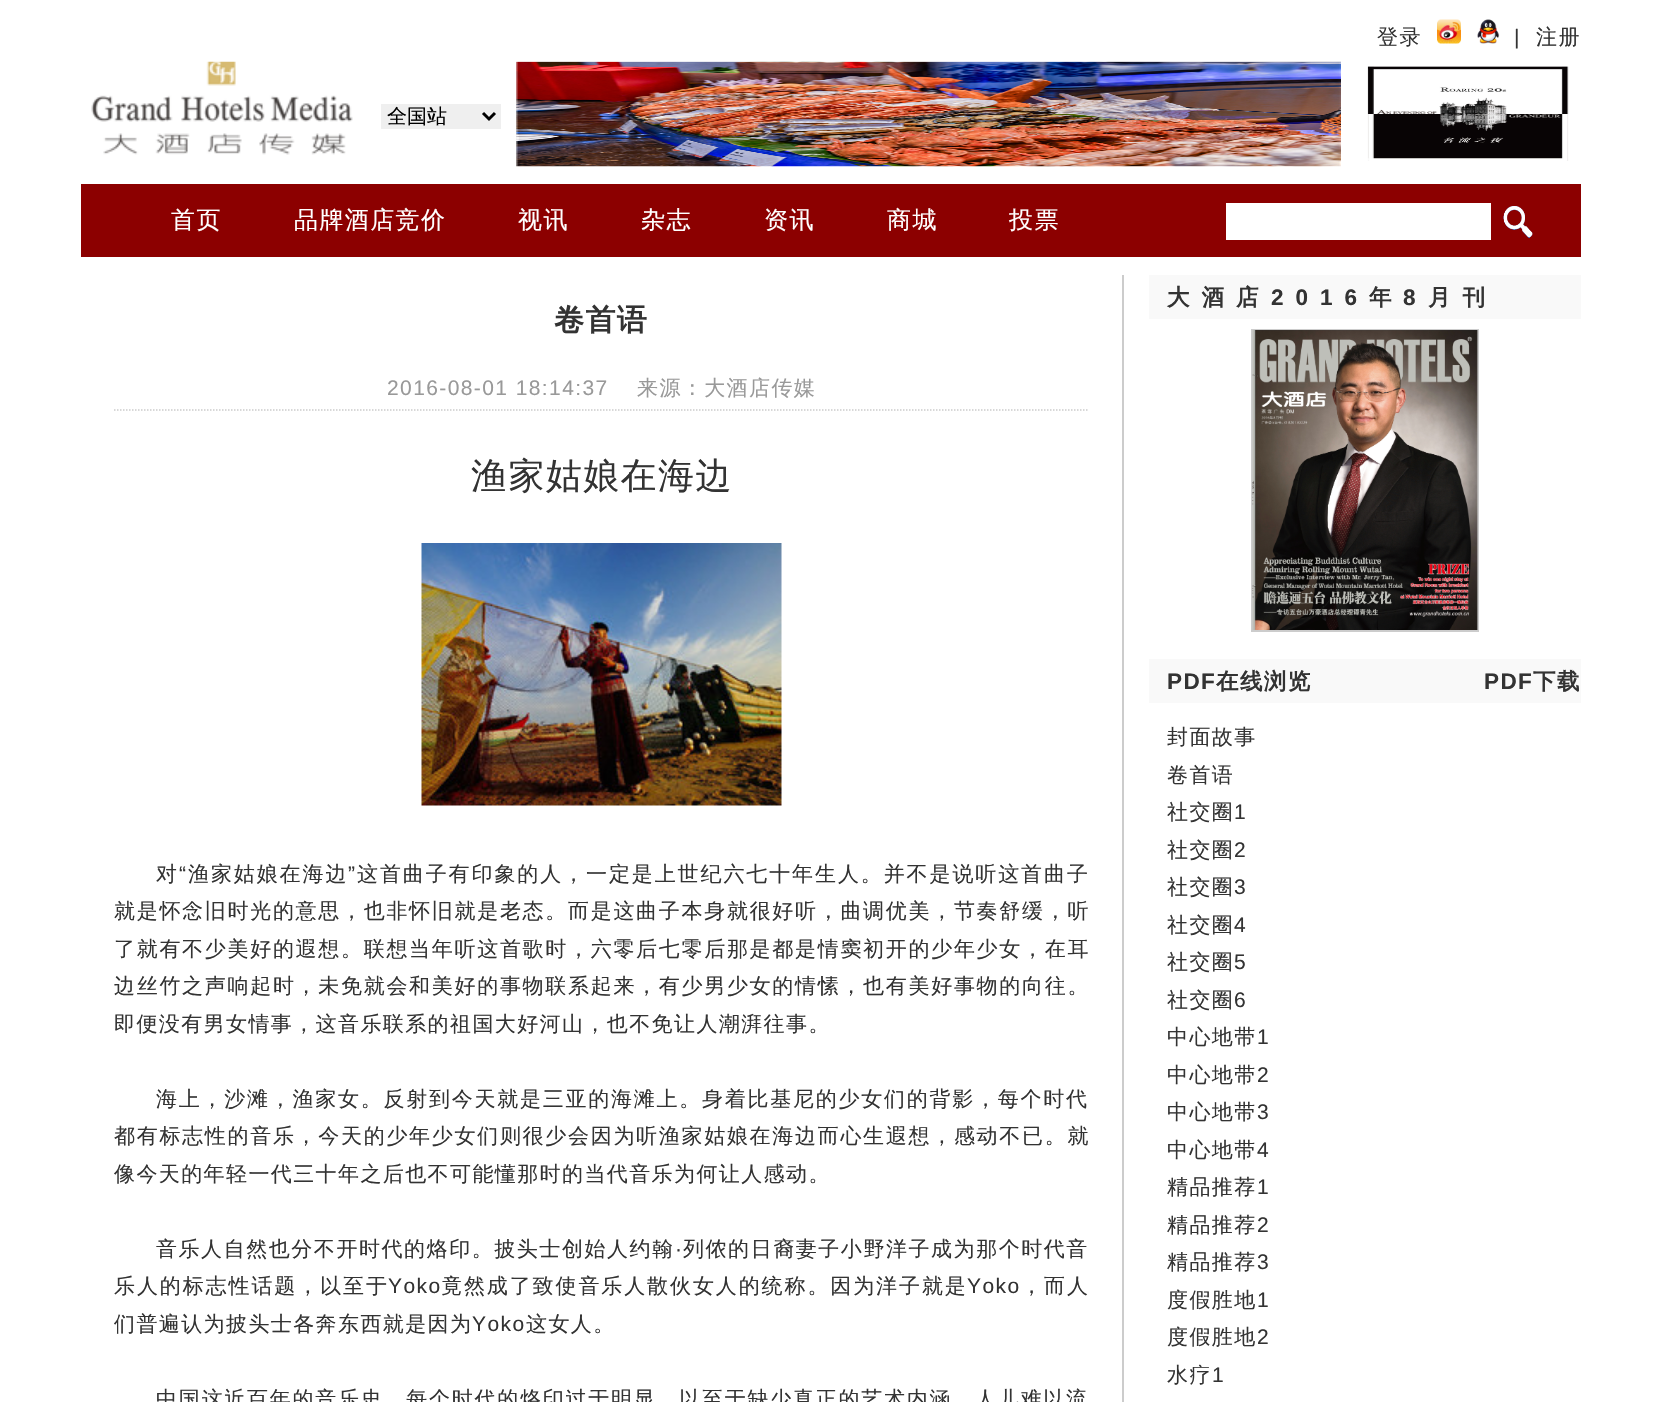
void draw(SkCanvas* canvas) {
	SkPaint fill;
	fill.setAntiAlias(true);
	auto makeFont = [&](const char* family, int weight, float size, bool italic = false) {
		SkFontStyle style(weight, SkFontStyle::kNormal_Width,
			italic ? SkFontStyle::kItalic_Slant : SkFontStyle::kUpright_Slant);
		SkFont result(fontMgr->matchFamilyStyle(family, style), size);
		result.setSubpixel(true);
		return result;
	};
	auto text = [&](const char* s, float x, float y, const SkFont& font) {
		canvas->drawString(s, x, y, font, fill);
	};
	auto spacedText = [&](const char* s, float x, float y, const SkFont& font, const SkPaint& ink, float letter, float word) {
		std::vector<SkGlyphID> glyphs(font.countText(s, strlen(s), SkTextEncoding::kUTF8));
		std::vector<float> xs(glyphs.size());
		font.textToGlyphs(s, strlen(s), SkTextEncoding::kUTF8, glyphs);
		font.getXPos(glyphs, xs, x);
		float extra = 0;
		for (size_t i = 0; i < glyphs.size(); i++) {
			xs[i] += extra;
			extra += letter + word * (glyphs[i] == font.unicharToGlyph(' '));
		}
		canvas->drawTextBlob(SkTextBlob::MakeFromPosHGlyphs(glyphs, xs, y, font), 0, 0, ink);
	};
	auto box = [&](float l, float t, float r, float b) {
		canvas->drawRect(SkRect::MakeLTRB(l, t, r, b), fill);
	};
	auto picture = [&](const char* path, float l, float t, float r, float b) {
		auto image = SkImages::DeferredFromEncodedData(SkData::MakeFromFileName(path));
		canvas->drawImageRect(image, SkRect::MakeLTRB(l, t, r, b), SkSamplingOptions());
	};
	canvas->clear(0xFFFFFFFF);
	picture("image0.png", 1437, 19, 1461, 44);
	picture("image1.png", 1477, 19, 1500, 44);
	picture("image2.png", 91, 61, 353, 155);
	fill.setColor(0xFFEFEFEF);
	box(381, 104, 501, 129);
	fill.setStyle(SkPaint::kStroke_Style);
	fill.setStrokeWidth(3);
	fill.setColor(0xFF000000);
	canvas->drawPath(SkPathBuilder().moveTo(483, 113).lineTo(489, 119).lineTo(495, 113).detach(), fill);
	picture("image3.png", 516, 61, 1341, 167);
	picture("image4.png", 1367, 66, 1569, 161);
	fill.setStyle(SkPaint::kFill_Style);
	fill.setColor(0xFF8C0000);
	box(81, 184, 1581, 257);
	fill.setColor(0xFFFFFFFF);
	box(1226, 203, 1491, 240);
	picture("image5.png", 1503, 206, 1533, 238);
	fill.setColor(0xFFCCCCCC);
	box(1122, 275, 1124, 1402);
	fill.setStyle(SkPaint::kStroke_Style);
	fill.setStrokeWidth(1.5f);
	fill.setPathEffect(SkDashPathEffect::Make({{1.5f, 1.5f}}, 0));
	canvas->drawPath(SkPathBuilder().moveTo(114, 410).lineTo(1089, 410).detach(), fill);
	fill.setPathEffect(nullptr);
	picture("image6.png", 421, 543, 782, 806);
	fill.setStyle(SkPaint::kFill_Style);
	fill.setColor(0xFFF9F9F9);
	box(1149, 275, 1581, 319);
	fill.setStyle(SkPaint::kStroke_Style);
	fill.setStrokeWidth(2);
	fill.setColor(0xFFCCCCCC);
	canvas->drawRect(SkRect::MakeLTRB(1252, 330, 1478, 631), fill);
	picture("image7.png", 1252, 330, 1478, 630);
	fill.setStyle(SkPaint::kFill_Style);
	fill.setColor(0xFFF9F9F9);
	box(1149, 659, 1581, 703);
	auto font1 = makeFont("WenQuanYi Zen Hei", 500, 21);
	fill.setColor(0xFF333333);
	spacedText("登录", 1377, 44, font1, fill, 1.4f, 0);
	auto font2 = makeFont("Liberation Sans", 400, 21);
	spacedText("|", 1514, 44, font2, fill, 1.4f, 0);
	spacedText("注册", 1536, 44, font1, fill, 1.4f, 0);
	auto font3 = makeFont("WenQuanYi Zen Hei", 500, 20);
	fill.setColor(0xFF000000);
	text("全国站", 387, 123, font3);
	auto font4 = makeFont("WenQuanYi Zen Hei", 500, 24);
	fill.setColor(0xFFFFFFFF);
	spacedText("首页", 171, 228, font4, fill, 1.4f, 0);
	spacedText("品牌酒店竞价", 294, 228, font4, fill, 1.4f, 0);
	spacedText("视讯", 518, 228, font4, fill, 1.4f, 0);
	spacedText("杂志", 641, 228, font4, fill, 1.4f, 0);
	spacedText("资讯", 764, 228, font4, fill, 1.4f, 0);
	spacedText("商城", 887, 228, font4, fill, 1.4f, 0);
	spacedText("投票", 1009, 228, font4, fill, 1.4f, 0);
	auto font5 = makeFont("WenQuanYi Zen Hei", 700, 30);
	fill.setColor(0xFF333333);
	spacedText("卷首语", 554, 330, font5, fill, 1.4f, 0);
	fill.setColor(0xFF999999);
	spacedText("2016-08-01 18:14:37", 387, 395, font2, fill, 1.4f, 0);
	spacedText("来源：大酒店传媒", 637, 395, font1, fill, 1.4f, 0);
	auto font6 = makeFont("WenQuanYi Zen Hei", 500, 36);
	fill.setColor(0xFF333333);
	spacedText("渔家姑娘在海边", 471, 488, font6, fill, 1.4f, 0);
	spacedText("对", 156, 881, font1, fill, 1.9f, 0);
	spacedText("“", 179, 881, font2, fill, 1.9f, 0);
	spacedText("渔家姑娘在海边", 188, 881, font1, fill, 1.9f, 0);
	spacedText("”", 348, 881, font2, fill, 1.9f, 0);
	spacedText("这首曲子有印象的人，一定是上世纪六七十年生人。并不是说听这首曲子", 357, 881, font1, fill, 1.9f, 0);
	spacedText("就是怀念旧时光的意思，也非怀旧就是老态。而是这曲子本身就很好听，曲调优美，节奏舒缓，听", 114, 918, font1, fill, 1.7f, 0);
	spacedText("了就有不少美好的遐想。联想当年听这首歌时，六零后七零后那是都是情窦初开的少年少女，在耳", 114, 956, font1, fill, 1.7f, 0);
	spacedText("边丝竹之声响起时，未免就会和美好的事物联系起来，有少男少女的情愫，也有美好事物的向往。", 114, 993, font1, fill, 1.7f, 0);
	spacedText("即便没有男女情事，这音乐联系的祖国大好河山，也不免让人潮湃往事。", 114, 1031, font1, fill, 1.4f, 0);
	spacedText("海上，沙滩，渔家女。反射到今天就是三亚的海滩上。身着比基尼的少女们的背影，每个时代", 156, 1106, font1, fill, 1.75f, 0);
	spacedText("都有标志性的音乐，今天的少年少女们则很少会因为听渔家姑娘在海边而心生遐想，感动不已。就", 114, 1143, font1, fill, 1.7f, 0);
	spacedText("像今天的年轻一代三十年之后也不可能懂那时的当代音乐为何让人感动。", 114, 1181, font1, fill, 1.4f, 0);
	spacedText("音乐人自然也分不开时代的烙印。披头士创始人约翰", 156, 1256, font1, fill, 1.55f, 0);
	spacedText("·", 675, 1256, font2, fill, 1.55f, 0);
	spacedText("列侬的日裔妻子小野洋子成为那个时代音", 683, 1256, font1, fill, 1.55f, 0);
	spacedText("乐人的标志性话题，以至于", 114, 1293, font1, fill, 1.9f, 0);
	spacedText("Yoko", 388, 1293, font2, fill, 1.4f, 0);
	spacedText("竟然成了致使音乐人散伙女人的统称。因为洋子就是", 441, 1293, font1, fill, 1.9f, 0);
	spacedText("Yoko", 967, 1293, font2, fill, 1.4f, 0);
	spacedText("，而人", 1021, 1293, font1, fill, 2, 0);
	spacedText("们普遍认为披头士各奔东西就是因为", 114, 1331, font1, fill, 1.4f, 0);
	spacedText("Yoko", 472, 1331, font2, fill, 1.4f, 0);
	spacedText("这女人。", 526, 1331, font1, fill, 1.4f, 0);
	spacedText("中国这近百年的音乐史，每个时代的烙印过于明显，以至于缺少真正的艺术内涵，人儿难以流", 156, 1406, font1, fill, 1.75f, 0);
	auto font7 = makeFont("WenQuanYi Zen Hei", 700, 22.5f);
	spacedText("大酒店", 1167, 305, font7, fill, 12, 0);
	auto font8 = makeFont("Liberation Sans", 700, 22.5f);
	spacedText("2016", 1271, 305, font8, fill, 12, 0);
	spacedText("年", 1369, 305, font7, fill, 12, 0);
	spacedText("8", 1403, 305, font8, fill, 12, 0);
	spacedText("月刊", 1428, 305, font7, fill, 12, 0);
	spacedText("PDF", 1167, 689, font8, fill, 1.4f, 0);
	spacedText("在线浏览", 1216, 689, font7, fill, 1.4f, 0);
	spacedText("PDF", 1484, 689, font8, fill, 1.4f, 0);
	spacedText("下载", 1533, 689, font7, fill, 1.4f, 0);
	spacedText("封面故事", 1167, 744, font1, fill, 1.4f, 0);
	spacedText("卷首语", 1167, 782, font1, fill, 1.4f, 0);
	spacedText("社交圈", 1167, 819, font1, fill, 1.4f, 0);
	spacedText("1", 1234, 819, font2, fill, 1.4f, 0);
	spacedText("社交圈", 1167, 857, font1, fill, 1.4f, 0);
	spacedText("2", 1234, 857, font2, fill, 1.4f, 0);
	spacedText("社交圈", 1167, 894, font1, fill, 1.4f, 0);
	spacedText("3", 1234, 894, font2, fill, 1.4f, 0);
	spacedText("社交圈", 1167, 932, font1, fill, 1.4f, 0);
	spacedText("4", 1234, 932, font2, fill, 1.4f, 0);
	spacedText("社交圈", 1167, 969, font1, fill, 1.4f, 0);
	spacedText("5", 1234, 969, font2, fill, 1.4f, 0);
	spacedText("社交圈", 1167, 1007, font1, fill, 1.4f, 0);
	spacedText("6", 1234, 1007, font2, fill, 1.4f, 0);
	spacedText("中心地带", 1167, 1044, font1, fill, 1.4f, 0);
	spacedText("1", 1257, 1044, font2, fill, 1.4f, 0);
	spacedText("中心地带", 1167, 1082, font1, fill, 1.4f, 0);
	spacedText("2", 1257, 1082, font2, fill, 1.4f, 0);
	spacedText("中心地带", 1167, 1119, font1, fill, 1.4f, 0);
	spacedText("3", 1257, 1119, font2, fill, 1.4f, 0);
	spacedText("中心地带", 1167, 1157, font1, fill, 1.4f, 0);
	spacedText("4", 1257, 1157, font2, fill, 1.4f, 0);
	spacedText("精品推荐", 1167, 1194, font1, fill, 1.4f, 0);
	spacedText("1", 1257, 1194, font2, fill, 1.4f, 0);
	spacedText("精品推荐", 1167, 1232, font1, fill, 1.4f, 0);
	spacedText("2", 1257, 1232, font2, fill, 1.4f, 0);
	spacedText("精品推荐", 1167, 1269, font1, fill, 1.4f, 0);
	spacedText("3", 1257, 1269, font2, fill, 1.4f, 0);
	spacedText("度假胜地", 1167, 1307, font1, fill, 1.4f, 0);
	spacedText("1", 1257, 1307, font2, fill, 1.4f, 0);
	spacedText("度假胜地", 1167, 1344, font1, fill, 1.4f, 0);
	spacedText("2", 1257, 1344, font2, fill, 1.4f, 0);
	spacedText("水疗", 1167, 1382, font1, fill, 1.4f, 0);
	spacedText("1", 1212, 1382, font2, fill, 1.4f, 0);
}
